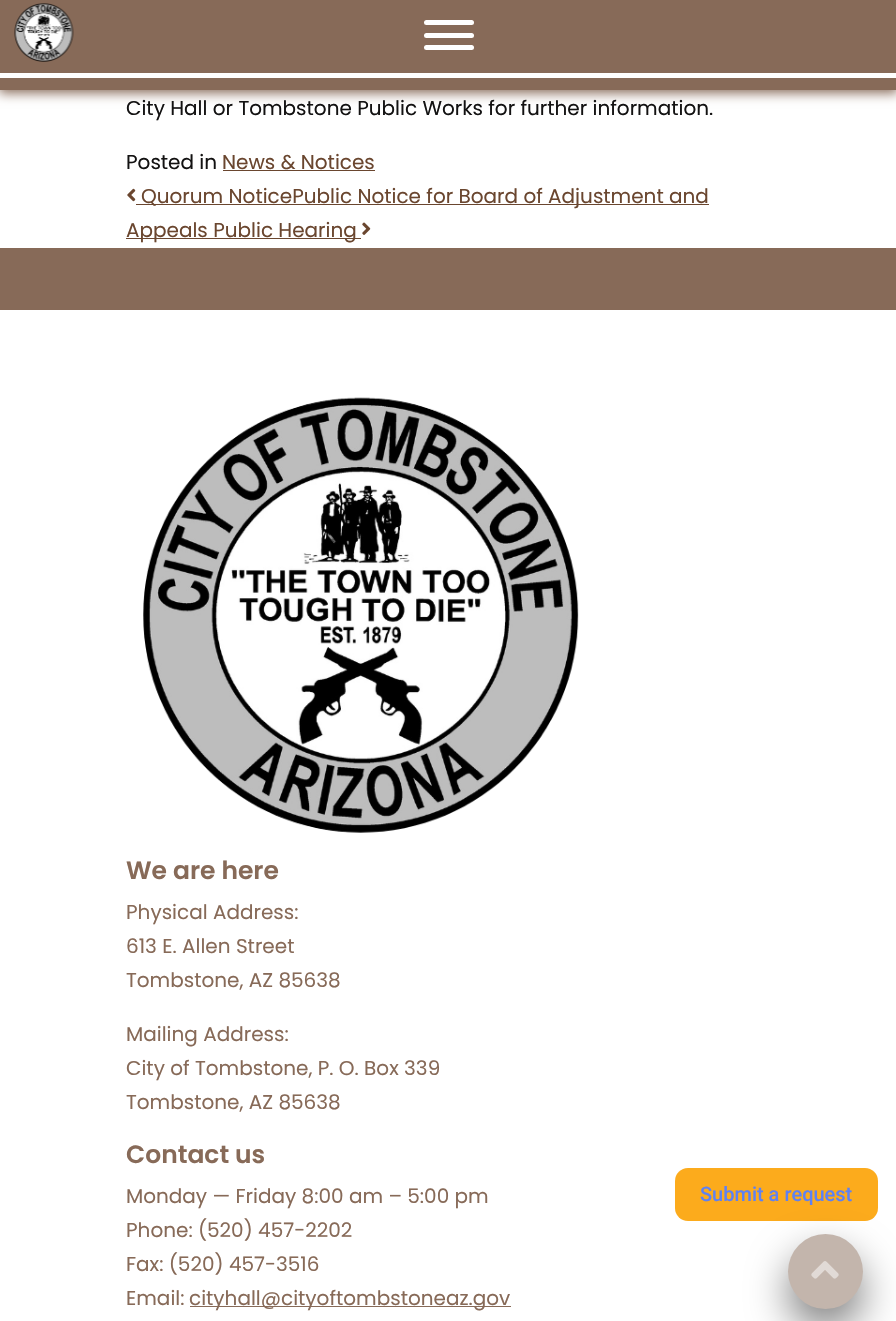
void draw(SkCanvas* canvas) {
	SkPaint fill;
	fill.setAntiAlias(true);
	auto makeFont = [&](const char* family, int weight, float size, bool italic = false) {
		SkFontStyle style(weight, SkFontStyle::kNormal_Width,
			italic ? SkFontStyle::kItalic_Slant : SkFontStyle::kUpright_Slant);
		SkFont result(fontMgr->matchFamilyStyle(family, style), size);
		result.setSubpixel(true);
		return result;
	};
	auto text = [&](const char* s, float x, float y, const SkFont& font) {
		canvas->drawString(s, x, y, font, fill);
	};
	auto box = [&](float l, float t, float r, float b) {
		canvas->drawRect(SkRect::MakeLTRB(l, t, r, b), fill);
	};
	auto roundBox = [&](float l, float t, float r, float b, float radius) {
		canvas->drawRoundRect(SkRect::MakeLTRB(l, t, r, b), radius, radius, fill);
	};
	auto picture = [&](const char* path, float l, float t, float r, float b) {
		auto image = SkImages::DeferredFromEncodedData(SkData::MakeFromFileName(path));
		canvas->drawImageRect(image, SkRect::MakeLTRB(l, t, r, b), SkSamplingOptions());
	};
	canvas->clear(0xFFFFFFFF);
	fill.setColor(0xFF876A58);
	fill.setMaskFilter(SkMaskFilter::MakeBlur(kNormal_SkBlurStyle, 5.5f));
	canvas->drawRect(SkRect::MakeLTRB(-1, 0, 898, 93), fill);
	fill.setMaskFilter(nullptr);
	box(0, 0, 896, 90);
	picture("image0.png", 14, 3, 74, 62);
	fill.setColor(0xFFFFFFFF);
	roundBox(424, 20, 474, 25, 2.5f);
	roundBox(424, 33, 474, 38, 2.5f);
	roundBox(424, 45, 474, 50, 2.5f);
	box(0, 73, 896, 78);
	fill.setColor(0xFF6A462F);
	box(223, 170, 375, 171);
	picture("image1.png", 127, 188, 136, 202);
	box(136, 204, 709, 205);
	box(126, 238, 361, 239);
	picture("image2.png", 362, 222, 371, 235);
	fill.setColor(0xFF876A58);
	box(0, 248, 896, 310);
	picture("image3.png", 143, 397, 579, 833);
	box(190, 1306, 511, 1307);
	fill.setColor(0xFFFCAB1C);
	roundBox(675, 1168, 878, 1221, 13);
	fill.setColor(0x80000000);
	fill.setMaskFilter(SkMaskFilter::MakeBlur(kNormal_SkBlurStyle, 20));
	canvas->drawRoundRect(SkRect::MakeLTRB(788, 1254, 863, 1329), 37.5f, 37.5f, fill);
	fill.setMaskFilter(nullptr);
	fill.setColor(0xFFC3B5AC);
	canvas->drawCircle(825.5f, 1271.5f, 37.5f, fill);
	picture("image4.png", 811, 1261, 839, 1279);
	auto font1 = makeFont("Poppins", 400, 20);
	fill.setColor(0xFF131212);
	text("City Hall or Tombstone Public Works for further information.", 126, 115, font1);
	text("Posted in", 126, 169, font1);
	fill.setColor(0xFF6A462F);
	text("News & Notices", 222, 169, font1);
	text("Quorum NoticePublic Notice for Board of Adjustment and", 141, 203, font1);
	text("Appeals Public Hearing", 126, 237, font1);
	auto font2 = makeFont("Poppins", 600, 25);
	fill.setColor(0xFF876A58);
	text("We are here", 126, 879, font2);
	text("Physical Address:", 126, 919, font1);
	text("613 E. Allen Street", 126, 953, font1);
	text("Tombstone, AZ 85638", 126, 987, font1);
	text("Mailing Address:", 126, 1041, font1);
	text("City of Tombstone, P. O. Box 339", 126, 1075, font1);
	text("Tombstone, AZ 85638", 126, 1109, font1);
	text("Contact us", 126, 1163, font2);
	text("Monday — Friday 8:00 am – 5:00 pm", 126, 1203, font1);
	text("Phone: (520) 457-2202", 126, 1237, font1);
	text("Fax: (520) 457-3516", 126, 1271, font1);
	text("Email:", 126, 1305, font1);
	text("cityhall@cityoftombstoneaz.gov", 189, 1305, font1);
	auto font3 = makeFont("Roboto", 500, 20);
	fill.setColor(0xFF5E81F4);
	text("Submit a request", 700, 1201, font3);
}
